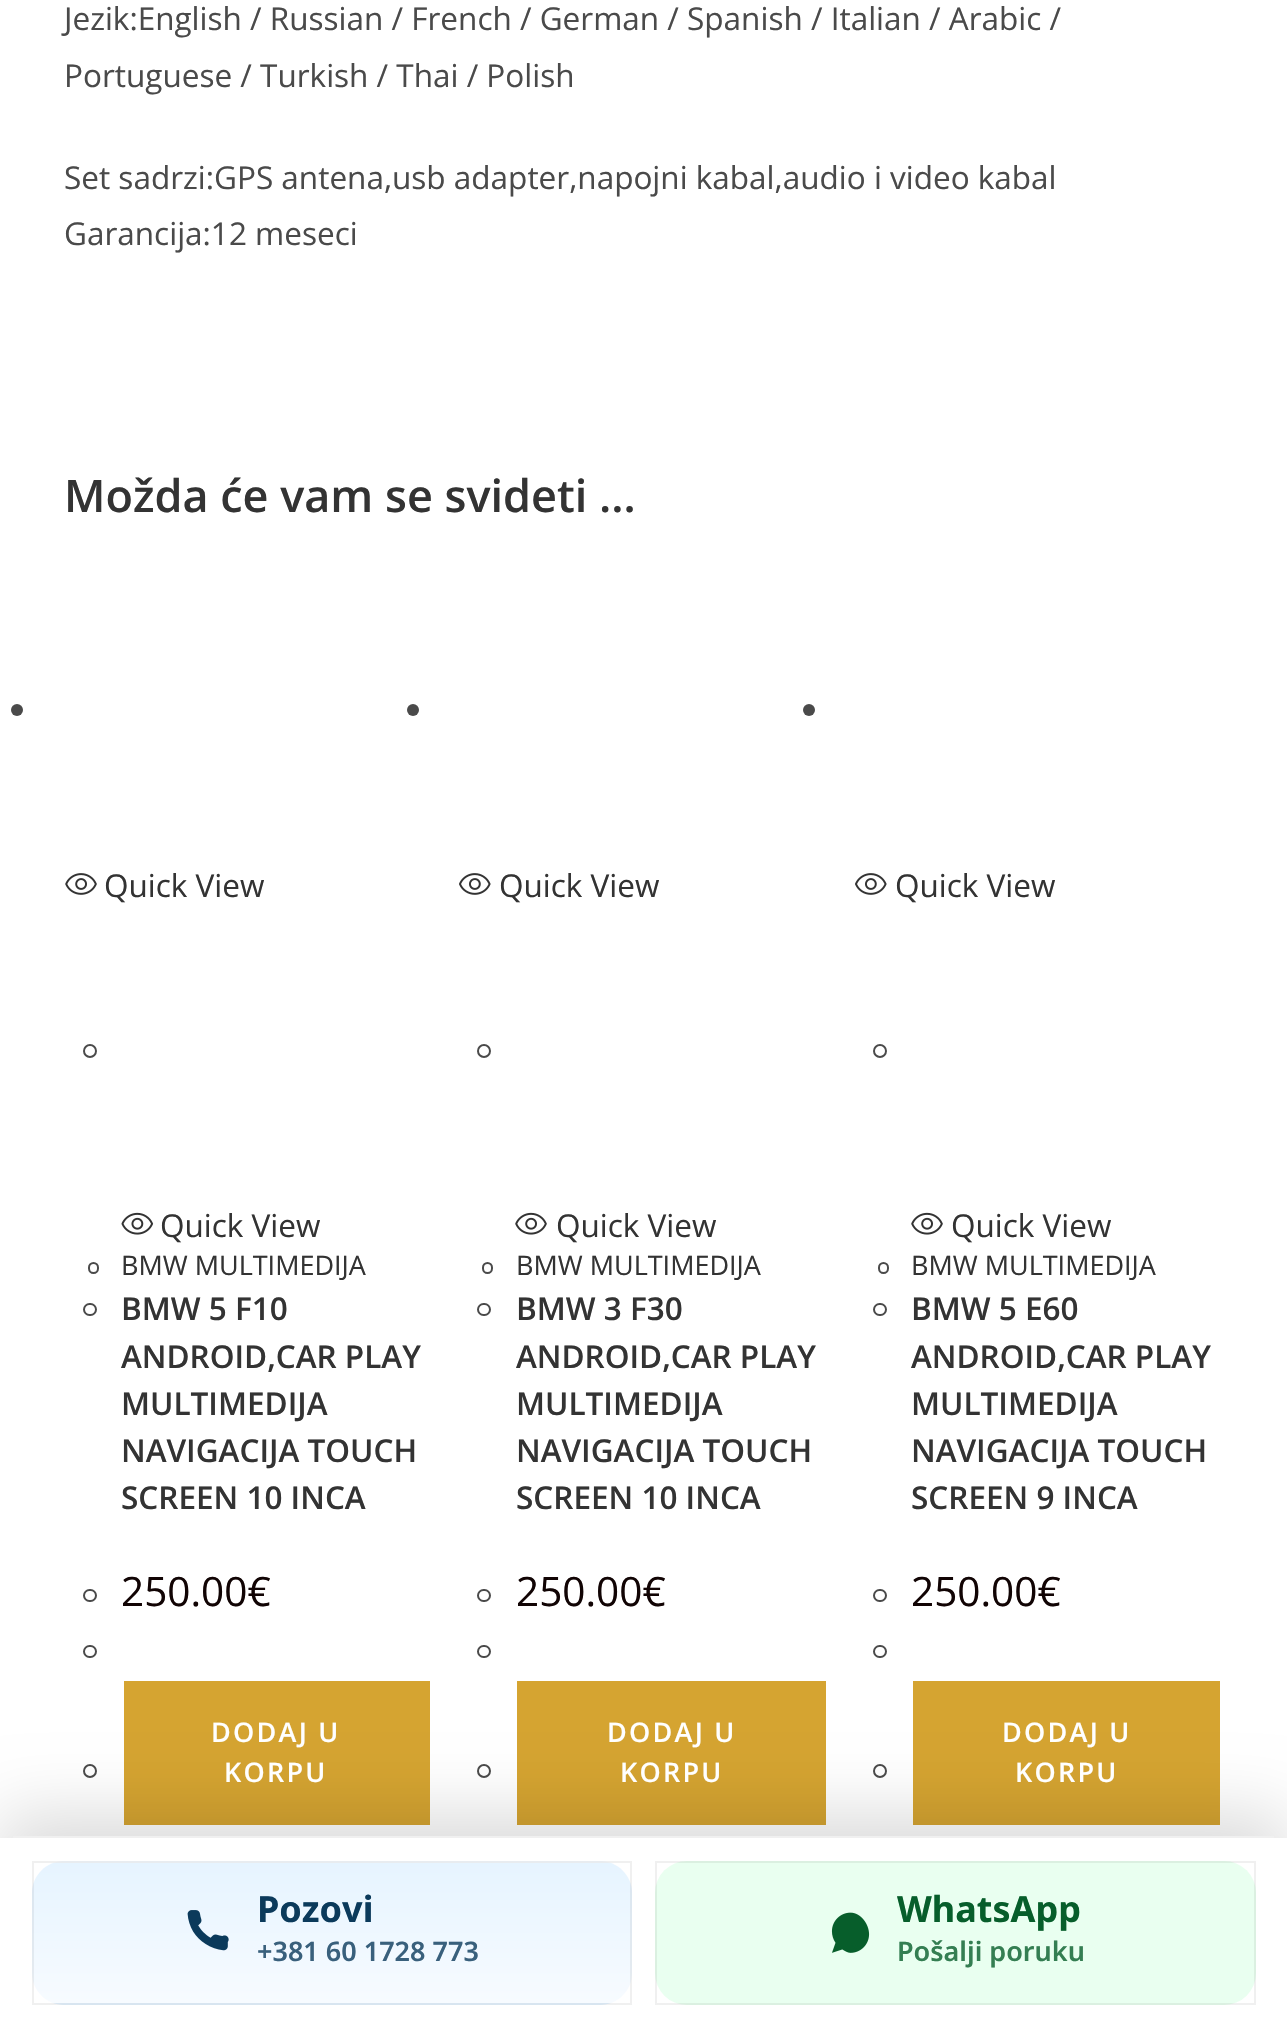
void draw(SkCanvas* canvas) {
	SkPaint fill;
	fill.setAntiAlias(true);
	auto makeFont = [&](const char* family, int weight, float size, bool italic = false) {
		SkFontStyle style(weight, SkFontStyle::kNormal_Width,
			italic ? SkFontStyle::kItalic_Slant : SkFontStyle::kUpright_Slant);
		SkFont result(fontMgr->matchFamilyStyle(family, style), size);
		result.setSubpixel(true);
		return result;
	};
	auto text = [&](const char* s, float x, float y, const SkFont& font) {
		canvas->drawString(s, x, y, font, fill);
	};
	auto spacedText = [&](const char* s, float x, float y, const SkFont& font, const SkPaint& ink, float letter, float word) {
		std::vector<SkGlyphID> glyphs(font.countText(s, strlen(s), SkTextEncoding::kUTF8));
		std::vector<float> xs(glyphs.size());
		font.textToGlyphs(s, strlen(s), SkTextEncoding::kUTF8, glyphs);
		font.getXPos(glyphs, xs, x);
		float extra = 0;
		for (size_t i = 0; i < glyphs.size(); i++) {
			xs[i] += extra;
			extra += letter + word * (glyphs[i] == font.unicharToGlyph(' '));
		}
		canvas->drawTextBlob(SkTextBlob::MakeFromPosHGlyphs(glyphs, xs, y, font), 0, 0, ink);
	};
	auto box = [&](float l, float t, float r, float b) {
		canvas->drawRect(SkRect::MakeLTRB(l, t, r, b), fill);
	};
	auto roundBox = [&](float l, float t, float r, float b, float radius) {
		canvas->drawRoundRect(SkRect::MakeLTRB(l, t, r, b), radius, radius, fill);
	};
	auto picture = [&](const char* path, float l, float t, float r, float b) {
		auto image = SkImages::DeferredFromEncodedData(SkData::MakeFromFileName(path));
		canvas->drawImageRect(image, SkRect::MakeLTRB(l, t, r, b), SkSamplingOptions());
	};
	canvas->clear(0xFFFFFFFF);
	fill.setColor(0xFF4A4A4A);
	canvas->drawCircle(17, 710, 6, fill);
	picture("image0.png", 65, 873, 97, 895);
	fill.setStyle(SkPaint::kStroke_Style);
	fill.setStrokeWidth(2);
	canvas->drawCircle(90, 1051, 6, fill);
	picture("image1.png", 121, 1212, 154, 1235);
	canvas->drawRoundRect(SkRect::MakeLTRB(89, 1263, 98, 1273), 4.5f, 4.5f, fill);
	canvas->drawRoundRect(SkRect::MakeLTRB(84, 1304, 96, 1315), 5.5f, 5.5f, fill);
	canvas->drawRoundRect(SkRect::MakeLTRB(84, 1590, 96, 1601), 5.5f, 5.5f, fill);
	canvas->drawRoundRect(SkRect::MakeLTRB(84, 1646, 96, 1657), 5.5f, 5.5f, fill);
	canvas->drawCircle(90, 1771, 6, fill);
	fill.setStyle(SkPaint::kFill_Style);
	fill.setColor(0xFFD5A431);
	box(124, 1681, 430, 1825);
	fill.setColor(0xFF4A4A4A);
	canvas->drawCircle(413, 710, 6, fill);
	picture("image2.png", 459, 873, 491, 895);
	fill.setStyle(SkPaint::kStroke_Style);
	canvas->drawCircle(484, 1051, 6, fill);
	picture("image3.png", 515, 1212, 547, 1235);
	canvas->drawRoundRect(SkRect::MakeLTRB(483, 1263, 492, 1273), 4.5f, 4.5f, fill);
	canvas->drawRoundRect(SkRect::MakeLTRB(478, 1304, 490, 1315), 5.5f, 5.5f, fill);
	canvas->drawRoundRect(SkRect::MakeLTRB(478, 1590, 490, 1601), 5.5f, 5.5f, fill);
	canvas->drawRoundRect(SkRect::MakeLTRB(478, 1646, 490, 1657), 5.5f, 5.5f, fill);
	canvas->drawCircle(484, 1771, 6, fill);
	fill.setStyle(SkPaint::kFill_Style);
	fill.setColor(0xFFD5A431);
	box(517, 1681, 826, 1825);
	fill.setColor(0xFF4A4A4A);
	canvas->drawCircle(809, 710, 6, fill);
	picture("image2.png", 855, 873, 887, 895);
	fill.setStyle(SkPaint::kStroke_Style);
	canvas->drawCircle(880, 1051, 6, fill);
	picture("image3.png", 911, 1212, 943, 1235);
	canvas->drawRoundRect(SkRect::MakeLTRB(879, 1263, 888, 1273), 4.5f, 4.5f, fill);
	canvas->drawRoundRect(SkRect::MakeLTRB(874, 1304, 886, 1315), 5.5f, 5.5f, fill);
	canvas->drawRoundRect(SkRect::MakeLTRB(874, 1590, 886, 1601), 5.5f, 5.5f, fill);
	canvas->drawRoundRect(SkRect::MakeLTRB(874, 1646, 886, 1657), 5.5f, 5.5f, fill);
	canvas->drawCircle(880, 1771, 6, fill);
	fill.setStyle(SkPaint::kFill_Style);
	fill.setColor(0xFFD5A431);
	box(913, 1681, 1220, 1825);
	fill.setColor(0x24000000);
	fill.setMaskFilter(SkMaskFilter::MakeBlur(kNormal_SkBlurStyle, 34));
	canvas->drawRect(SkRect::MakeLTRB(0, 1814, 1287, 2005), fill);
	fill.setMaskFilter(nullptr);
	fill.setColor(0xFFFFFFFF);
	box(0, 1838, 1287, 2027);
	fill.setColor(0xFFF0F0F0);
	box(13, 1836, 1274, 1838);
	canvas->save();
	canvas->clipPath(SkPathBuilder().moveTo(64, 1861).lineTo(600, 1861).cubicTo(617.5f, 1861, 632, 1875.5f, 632, 1893).lineTo(632, 1973).cubicTo(632, 1990.5f, 617.5f, 2005, 600, 2005).lineTo(64, 2005).cubicTo(46.5f, 2005, 32, 1990.5f, 32, 1973).lineTo(32, 1893).cubicTo(32, 1875.5f, 46.5f, 1861, 64, 1861).close().detach(), true);
	{
		const SkColor colors[] = {0xFFE6F4FF, 0xFFF7FBFF};
		const float stops[] = {0, 1};
		const SkPoint ends[] = {{332, 1724}, {332, 1863}};
		fill.setShader(SkGradientShader::MakeLinear(ends, colors, stops, 2, SkTileMode::kClamp));
		fill.setAlpha(255);
	}
	box(53, 1861, 611, 1863);
	{
		const SkColor colors[] = {0xFFE6F4FF, 0xFFF7FBFF};
		const float stops[] = {0, 1};
		const SkPoint ends[] = {{332, 1863}, {332, 2003}};
		fill.setShader(SkGradientShader::MakeLinear(ends, colors, stops, 2, SkTileMode::kClamp));
		fill.setAlpha(255);
	}
	box(32, 1863, 632, 2003);
	{
		const SkColor colors[] = {0xFFE6F4FF, 0xFFF7FBFF};
		const float stops[] = {0, 1};
		const SkPoint ends[] = {{332, 2003}, {332, 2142}};
		fill.setShader(SkGradientShader::MakeLinear(ends, colors, stops, 2, SkTileMode::kClamp));
		fill.setAlpha(255);
	}
	box(53, 2003, 611, 2005);
	canvas->restore();
	fill.setStyle(SkPaint::kStroke_Style);
	fill.setShader(nullptr);
	fill.setColor(0x0F000000);
	canvas->drawRect(SkRect::MakeLTRB(33, 1862, 631, 2004), fill);
	picture("image4.png", 187, 1910, 229, 1951);
	fill.setStyle(SkPaint::kFill_Style);
	fill.setColor(0xFFE9FFF0);
	roundBox(655, 1861, 1256, 2005, 32);
	fill.setStyle(SkPaint::kStroke_Style);
	fill.setColor(0x0F000000);
	canvas->drawRect(SkRect::MakeLTRB(656, 1862, 1255, 2004), fill);
	picture("image5.png", 831, 1912, 870, 1953);
	auto font1 = makeFont("Open Sans", 400, 31.5f);
	fill.setStyle(SkPaint::kFill_Style);
	fill.setColor(0xFF4A4A4A);
	text("Jezik:English / Russian / French / German / Spanish / Italian / Arabic /", 64, 30, font1);
	text("Portuguese / Turkish / Thai / Polish", 64, 87, font1);
	text("Set sadrzi:GPS antena,usb adapter,napojni kabal,audio i video kabal", 64, 189, font1);
	text("Garancija:12 meseci", 64, 245, font1);
	auto font2 = makeFont("Open Sans", 600, 45);
	fill.setColor(0xFF333333);
	text("Možda će vam se svideti …", 64, 512, font2);
	text("Quick View", 104, 897, font1);
	text("Quick View", 160, 1237, font1);
	auto font3 = makeFont("Open Sans", 400, 27);
	text("BMW MULTIMEDIJA", 121, 1275, font3);
	auto font4 = makeFont("Open Sans", 600, 31.5f);
	text("BMW 5 F10", 121, 1320, font4);
	text("ANDROID,CAR PLAY", 121, 1368, font4);
	text("MULTIMEDIJA", 121, 1415, font4);
	text("NAVIGACIJA TOUCH", 121, 1462, font4);
	text("SCREEN 10 INCA", 121, 1509, font4);
	auto font5 = makeFont("Open Sans", 400, 40.5f);
	fill.setColor(0xFF110404);
	text("250.00€", 121, 1606, font5);
	auto font6 = makeFont("Open Sans", 600, 27);
	fill.setColor(0xFFFFFFFF);
	spacedText("DODAJ U", 211, 1742, font6, fill, 2.25f, 0);
	spacedText("KORPU", 224, 1782, font6, fill, 2.25f, 0);
	fill.setColor(0xFF333333);
	text("Quick View", 499, 897, font1);
	text("Quick View", 556, 1237, font1);
	text("BMW MULTIMEDIJA", 516, 1275, font3);
	text("BMW 3 F30", 516, 1320, font4);
	text("ANDROID,CAR PLAY", 516, 1368, font4);
	text("MULTIMEDIJA", 516, 1415, font4);
	text("NAVIGACIJA TOUCH", 516, 1462, font4);
	text("SCREEN 10 INCA", 516, 1509, font4);
	fill.setColor(0xFF110404);
	text("250.00€", 516, 1606, font5);
	fill.setColor(0xFFFFFFFF);
	spacedText("DODAJ U", 607, 1742, font6, fill, 2.25f, 0);
	spacedText("KORPU", 620, 1782, font6, fill, 2.25f, 0);
	fill.setColor(0xFF333333);
	text("Quick View", 895, 897, font1);
	text("Quick View", 951, 1237, font1);
	text("BMW MULTIMEDIJA", 911, 1275, font3);
	text("BMW 5 E60", 911, 1320, font4);
	text("ANDROID,CAR PLAY", 911, 1368, font4);
	text("MULTIMEDIJA", 911, 1415, font4);
	text("NAVIGACIJA TOUCH", 911, 1462, font4);
	text("SCREEN 9 INCA", 911, 1509, font4);
	fill.setColor(0xFF110404);
	text("250.00€", 911, 1606, font5);
	fill.setColor(0xFFFFFFFF);
	spacedText("DODAJ U", 1002, 1742, font6, fill, 2.25f, 0);
	spacedText("KORPU", 1015, 1782, font6, fill, 2.25f, 0);
	auto font7 = makeFont("Noto Sans", 700, 36);
	fill.setColor(0xFF0B3A5B);
	text("Pozovi", 257, 1922, font7);
	auto font8 = makeFont("Noto Sans", 600, 27);
	fill.setColor(0xFF39607C);
	text("+381 60 1728 773", 257, 1961, font8);
	fill.setColor(0xFF075E2B);
	text("WhatsApp", 897, 1922, font7);
	fill.setColor(0xFF347E52);
	text("Pošalji poruku", 897, 1961, font8);
}
